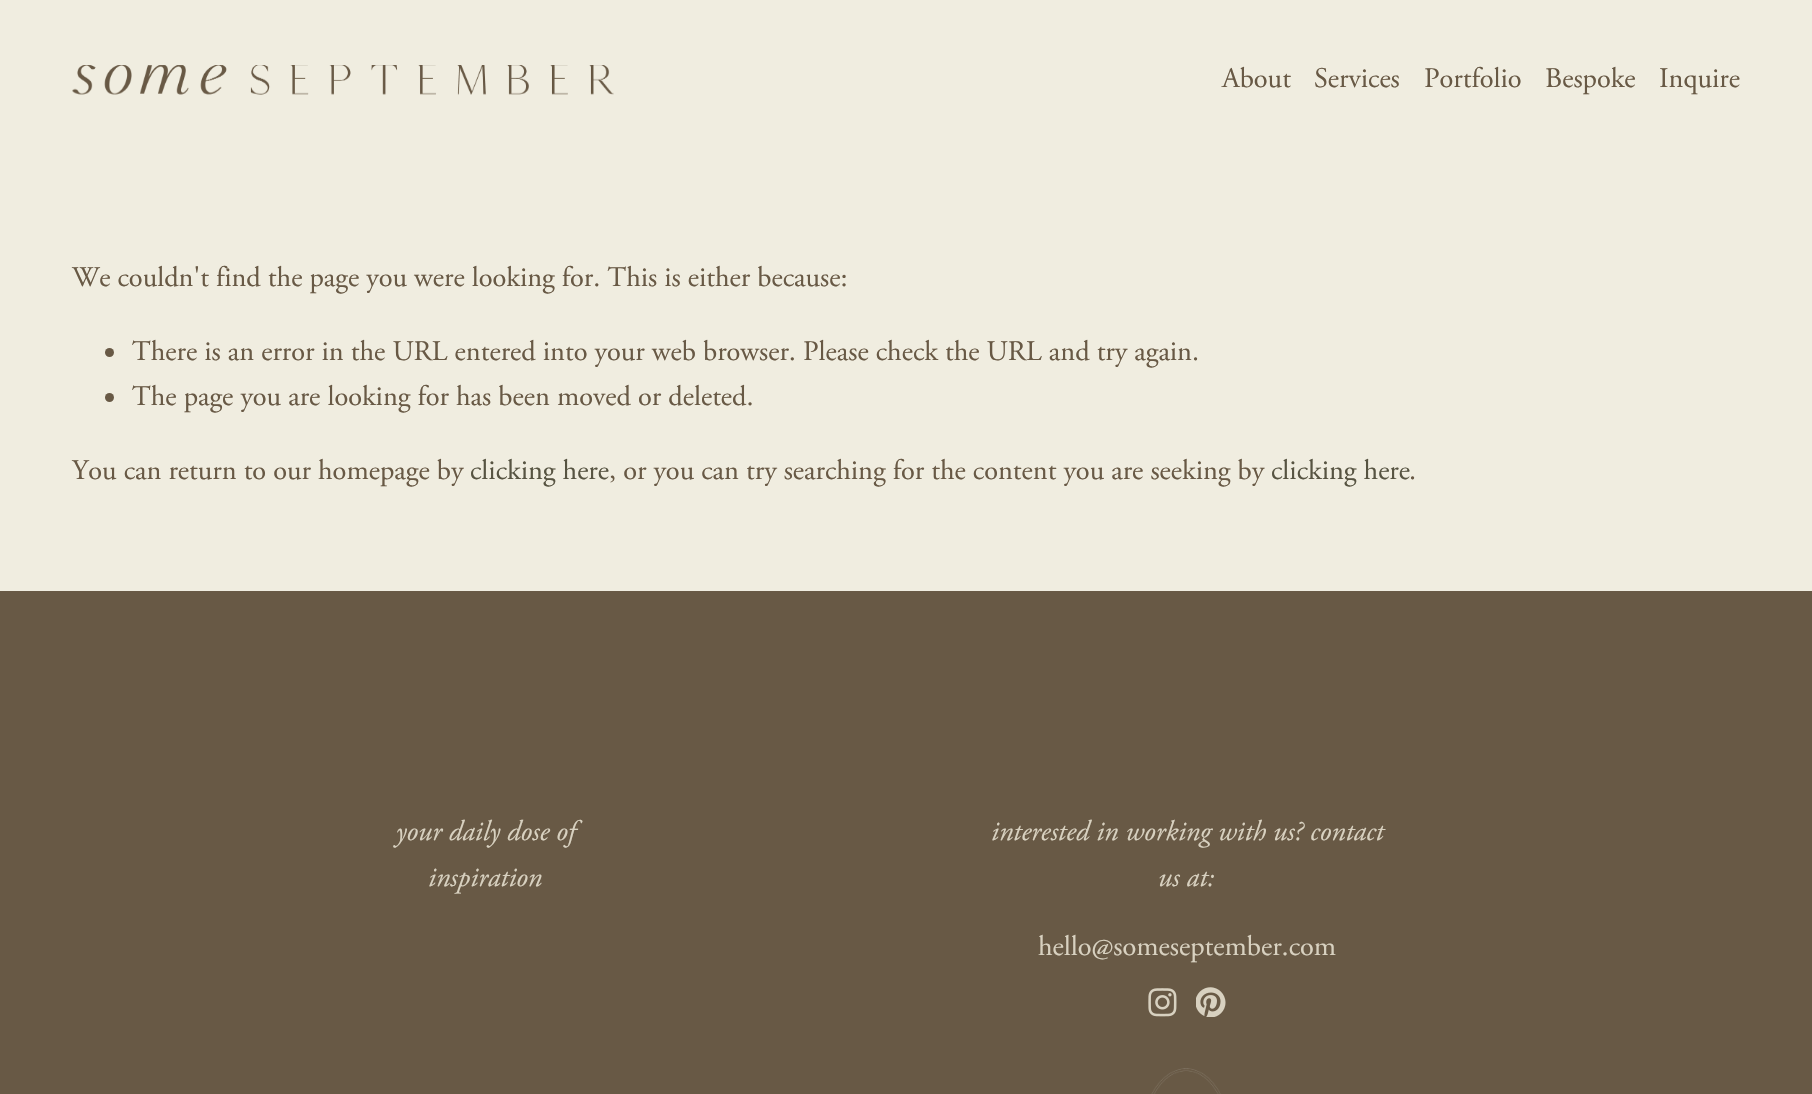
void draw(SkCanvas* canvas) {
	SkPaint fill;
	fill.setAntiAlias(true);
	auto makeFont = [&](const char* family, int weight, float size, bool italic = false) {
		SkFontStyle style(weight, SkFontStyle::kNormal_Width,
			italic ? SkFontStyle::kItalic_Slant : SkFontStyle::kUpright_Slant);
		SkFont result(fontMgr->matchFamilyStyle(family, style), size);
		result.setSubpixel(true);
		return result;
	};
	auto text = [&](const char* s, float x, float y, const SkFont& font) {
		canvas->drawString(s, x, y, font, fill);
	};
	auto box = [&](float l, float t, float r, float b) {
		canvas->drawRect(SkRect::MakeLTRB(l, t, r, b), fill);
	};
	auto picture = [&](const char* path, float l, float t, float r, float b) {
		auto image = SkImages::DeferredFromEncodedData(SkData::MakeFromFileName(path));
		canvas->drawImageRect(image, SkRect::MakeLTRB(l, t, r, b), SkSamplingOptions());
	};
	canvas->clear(0xFFF0EDE0);
	picture("image0.png", 72, 65, 614, 95);
	fill.setColor(0xFF685945);
	canvas->drawCircle(109.5f, 352.5f, 4.5f, fill);
	canvas->drawCircle(109.5f, 397.5f, 4.5f, fill);
	box(0, 591, 1812, 1094);
	picture("image1.png", 1148, 988, 1177, 1017);
	picture("image2.png", 1196, 987, 1226, 1017);
	picture("image3.png", 1151, 1068, 1221, 1094);
	auto font1 = makeFont("Adobe Garamond", 400, 28.35f);
	text("About", 1222, 87, font1);
	text("Services", 1314, 87, font1);
	text("Portfolio", 1424, 87, font1);
	text("Bespoke", 1545, 87, font1);
	text("Inquire", 1659, 87, font1);
	text("We couldn't find the page you were looking for. This is either because:", 72, 286, font1);
	text("There is an error in the URL entered into your web browser. Please check the URL and try again.", 132, 360, font1);
	text("The page you are looking for has been moved or deleted.", 132, 405, font1);
	text("You can return to our homepage by", 72, 479, font1);
	fill.setColor(0xFF575442);
	text("clicking here", 470, 479, font1);
	fill.setColor(0xFF685945);
	text(", or you can try searching for the content you are seeking by", 609, 479, font1);
	fill.setColor(0xFF575442);
	text("clicking here", 1271, 479, font1);
	fill.setColor(0xFF685945);
	text(".", 1409, 479, font1);
	auto font2 = makeFont("Adobe Garamond", 400, 28.35f, true);
	fill.setColor(0xFFD8D1C0);
	text("your daily dose of", 396, 840, font2);
	text("inspiration", 428, 886, font2);
	text("interested in working with us? contact", 991, 840, font2);
	text("us at:", 1158, 886, font2);
	text("hello@someseptember.com", 1038, 955, font1);
}
